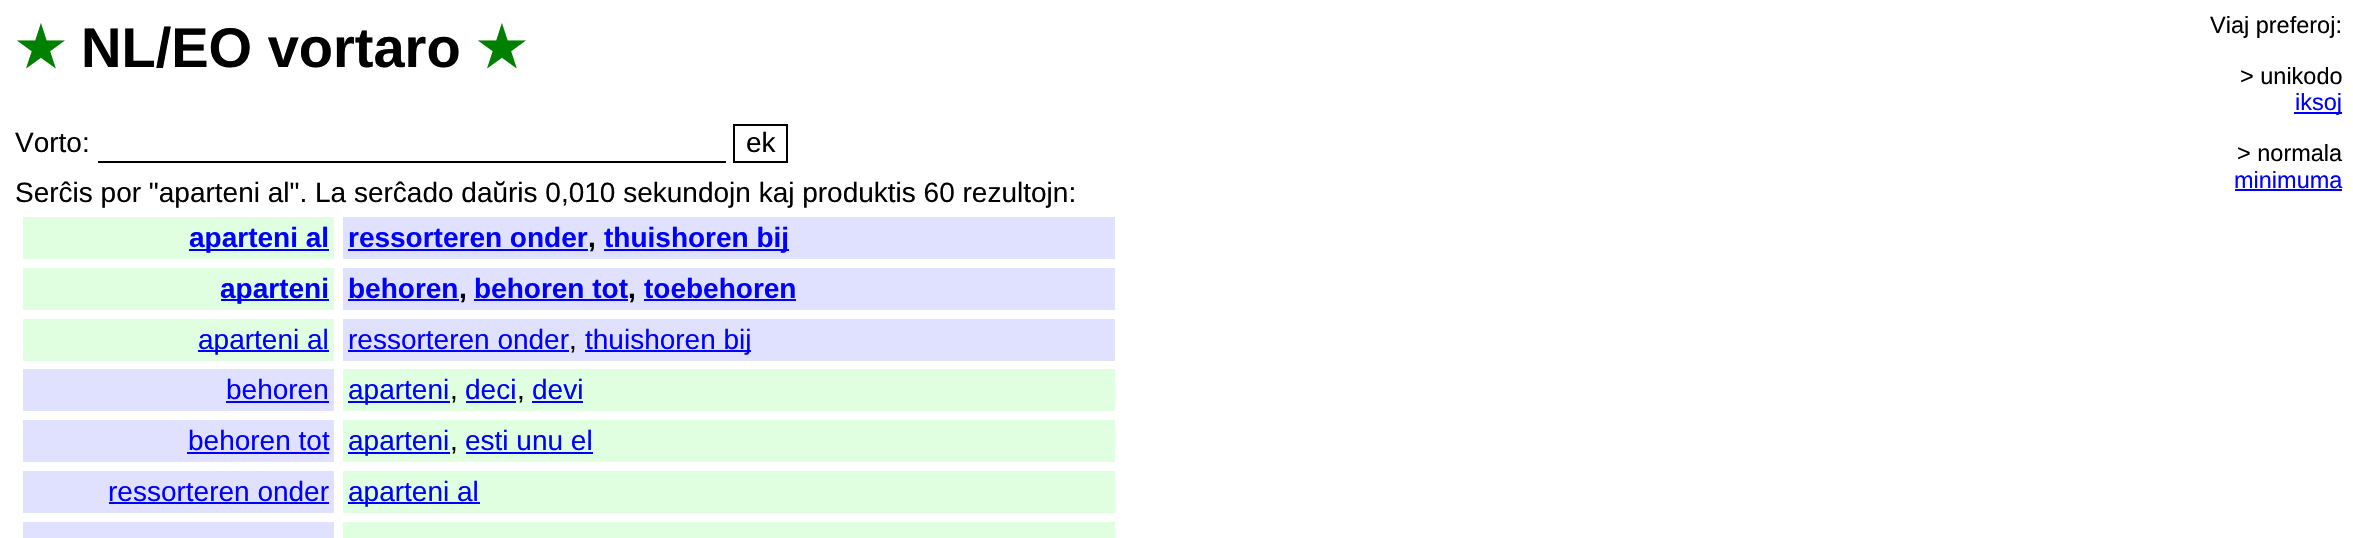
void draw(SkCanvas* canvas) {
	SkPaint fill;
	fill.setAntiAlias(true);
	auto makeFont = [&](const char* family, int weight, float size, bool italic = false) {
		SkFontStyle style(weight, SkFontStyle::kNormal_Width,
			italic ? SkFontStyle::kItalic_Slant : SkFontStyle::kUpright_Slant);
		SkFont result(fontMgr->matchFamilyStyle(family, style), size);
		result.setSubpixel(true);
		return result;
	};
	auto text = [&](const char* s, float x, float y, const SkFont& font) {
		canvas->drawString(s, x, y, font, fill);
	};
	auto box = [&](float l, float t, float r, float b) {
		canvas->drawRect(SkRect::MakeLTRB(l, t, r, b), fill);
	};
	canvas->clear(0xFFFFFFFF);
	fill.setColor(0xFF0000FF);
	box(2294, 112, 2342, 114);
	box(2235, 189, 2342, 191);
	fill.setStyle(SkPaint::kStroke_Style);
	fill.setStrokeWidth(2);
	fill.setColor(0xFF000000);
	canvas->drawRect(SkRect::MakeLTRB(734, 125, 787, 162), fill);
	fill.setStyle(SkPaint::kFill_Style);
	box(98, 161, 726, 163);
	fill.setColor(0xFFE0FFE0);
	box(23, 217, 334, 259);
	fill.setColor(0xFF0000FF);
	box(189, 249, 329, 251);
	fill.setColor(0xFFE0E0FF);
	box(343, 217, 1115, 259);
	fill.setColor(0xFF0000FF);
	box(348, 249, 588, 251);
	box(604, 249, 789, 251);
	fill.setColor(0xFFE0FFE0);
	box(23, 268, 334, 310);
	fill.setColor(0xFF0000FF);
	box(221, 299, 329, 301);
	fill.setColor(0xFFE0E0FF);
	box(343, 268, 1115, 310);
	fill.setColor(0xFF0000FF);
	box(348, 299, 459, 301);
	box(474, 299, 628, 301);
	box(644, 299, 796, 301);
	fill.setColor(0xFFE0FFE0);
	box(23, 319, 334, 361);
	fill.setColor(0xFF0000FF);
	box(198, 350, 329, 352);
	fill.setColor(0xFFE0E0FF);
	box(343, 319, 1115, 361);
	fill.setColor(0xFF0000FF);
	box(348, 350, 569, 352);
	box(585, 350, 751, 352);
	fill.setColor(0xFFE0E0FF);
	box(23, 369, 334, 411);
	fill.setColor(0xFF0000FF);
	box(226, 401, 329, 403);
	fill.setColor(0xFFE0FFE0);
	box(343, 369, 1115, 411);
	fill.setColor(0xFF0000FF);
	box(348, 401, 450, 403);
	box(466, 401, 516, 403);
	box(532, 401, 583, 403);
	fill.setColor(0xFFE0E0FF);
	box(23, 420, 334, 462);
	fill.setColor(0xFF0000FF);
	box(187, 452, 329, 454);
	fill.setColor(0xFFE0FFE0);
	box(343, 420, 1115, 462);
	fill.setColor(0xFF0000FF);
	box(348, 452, 450, 454);
	box(466, 452, 593, 454);
	fill.setColor(0xFFE0E0FF);
	box(23, 471, 334, 513);
	fill.setColor(0xFF0000FF);
	box(109, 502, 329, 504);
	fill.setColor(0xFFE0FFE0);
	box(343, 471, 1115, 513);
	fill.setColor(0xFF0000FF);
	box(348, 502, 480, 504);
	fill.setColor(0xFFE0E0FF);
	box(23, 522, 334, 538);
	fill.setColor(0xFFE0FFE0);
	box(343, 522, 1115, 538);
	auto font1 = makeFont("DejaVu Sans", 700, 56);
	fill.setColor(0xFF008000);
	text("★", 15, 67, font1);
	auto font2 = makeFont("Liberation Sans", 700, 56);
	fill.setColor(0xFF000000);
	text("NL/EO vortaro", 81, 67, font2);
	fill.setColor(0xFF008000);
	text("★", 476, 67, font1);
	auto font3 = makeFont("Liberation Sans", 400, 23.5f);
	fill.setColor(0xFF000000);
	text("Viaj preferoj:", 2210, 33, font3);
	text("> unikodo", 2240, 84, font3);
	fill.setColor(0xFF0000FF);
	text("iksoj", 2295, 110, font3);
	fill.setColor(0xFF000000);
	text("> normala", 2237, 161, font3);
	fill.setColor(0xFF0000FF);
	text("minimuma", 2234, 188, font3);
	auto font4 = makeFont("Liberation Sans", 400, 28);
	fill.setColor(0xFF000000);
	text("Vorto:", 15, 152, font4);
	text("ek", 746, 152, font4);
	text("Serĉis por \"aparteni al\". La serĉado daŭris 0,010 sekundojn kaj produktis 60 rezultojn:", 15, 202, font4);
	auto font5 = makeFont("Liberation Sans", 700, 28);
	fill.setColor(0xFF0000FF);
	text("aparteni al", 189, 247, font5);
	text("ressorteren onder", 348, 247, font5);
	fill.setColor(0xFF000000);
	text(",", 588, 247, font5);
	fill.setColor(0xFF0000FF);
	text("thuishoren bij", 604, 247, font5);
	text("aparteni", 220, 298, font5);
	text("behoren", 348, 298, font5);
	fill.setColor(0xFF000000);
	text(",", 459, 298, font5);
	fill.setColor(0xFF0000FF);
	text("behoren tot", 474, 298, font5);
	fill.setColor(0xFF000000);
	text(",", 628, 298, font5);
	fill.setColor(0xFF0000FF);
	text("toebehoren", 644, 298, font5);
	text("aparteni al", 198, 349, font4);
	text("ressorteren onder", 348, 349, font4);
	fill.setColor(0xFF000000);
	text(",", 569, 349, font4);
	fill.setColor(0xFF0000FF);
	text("thuishoren bij", 585, 349, font4);
	text("behoren", 226, 399, font4);
	text("aparteni", 348, 399, font4);
	fill.setColor(0xFF000000);
	text(",", 450, 399, font4);
	fill.setColor(0xFF0000FF);
	text("deci", 465, 399, font4);
	fill.setColor(0xFF000000);
	text(",", 517, 399, font4);
	fill.setColor(0xFF0000FF);
	text("devi", 532, 399, font4);
	text("behoren tot", 188, 450, font4);
	text("aparteni", 348, 450, font4);
	fill.setColor(0xFF000000);
	text(",", 450, 450, font4);
	fill.setColor(0xFF0000FF);
	text("esti unu el", 465, 450, font4);
	text("ressorteren onder", 108, 501, font4);
	text("aparteni al", 348, 501, font4);
}
